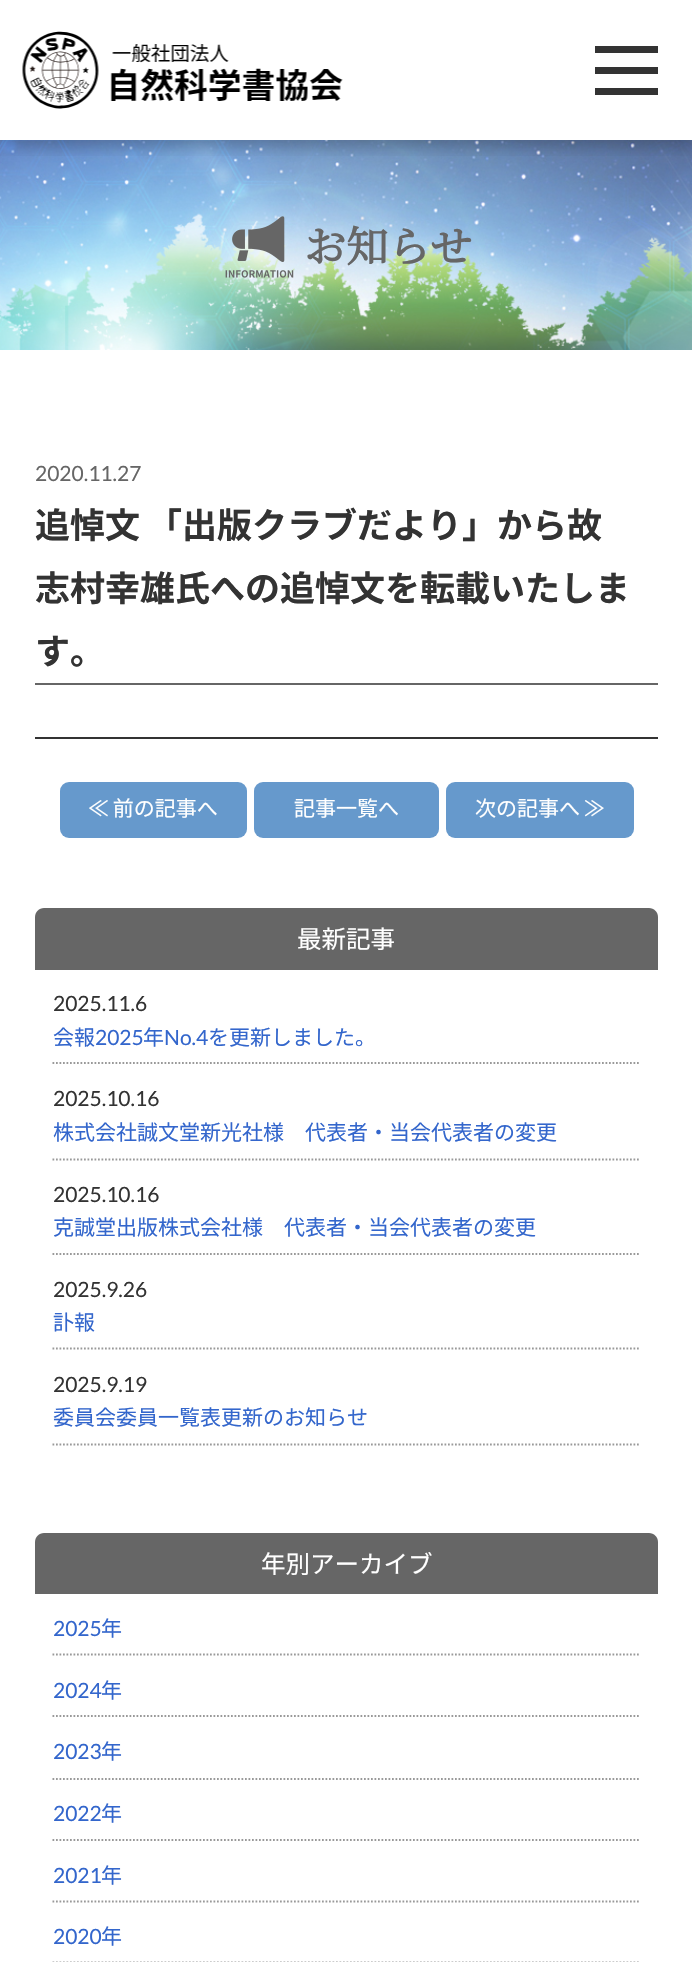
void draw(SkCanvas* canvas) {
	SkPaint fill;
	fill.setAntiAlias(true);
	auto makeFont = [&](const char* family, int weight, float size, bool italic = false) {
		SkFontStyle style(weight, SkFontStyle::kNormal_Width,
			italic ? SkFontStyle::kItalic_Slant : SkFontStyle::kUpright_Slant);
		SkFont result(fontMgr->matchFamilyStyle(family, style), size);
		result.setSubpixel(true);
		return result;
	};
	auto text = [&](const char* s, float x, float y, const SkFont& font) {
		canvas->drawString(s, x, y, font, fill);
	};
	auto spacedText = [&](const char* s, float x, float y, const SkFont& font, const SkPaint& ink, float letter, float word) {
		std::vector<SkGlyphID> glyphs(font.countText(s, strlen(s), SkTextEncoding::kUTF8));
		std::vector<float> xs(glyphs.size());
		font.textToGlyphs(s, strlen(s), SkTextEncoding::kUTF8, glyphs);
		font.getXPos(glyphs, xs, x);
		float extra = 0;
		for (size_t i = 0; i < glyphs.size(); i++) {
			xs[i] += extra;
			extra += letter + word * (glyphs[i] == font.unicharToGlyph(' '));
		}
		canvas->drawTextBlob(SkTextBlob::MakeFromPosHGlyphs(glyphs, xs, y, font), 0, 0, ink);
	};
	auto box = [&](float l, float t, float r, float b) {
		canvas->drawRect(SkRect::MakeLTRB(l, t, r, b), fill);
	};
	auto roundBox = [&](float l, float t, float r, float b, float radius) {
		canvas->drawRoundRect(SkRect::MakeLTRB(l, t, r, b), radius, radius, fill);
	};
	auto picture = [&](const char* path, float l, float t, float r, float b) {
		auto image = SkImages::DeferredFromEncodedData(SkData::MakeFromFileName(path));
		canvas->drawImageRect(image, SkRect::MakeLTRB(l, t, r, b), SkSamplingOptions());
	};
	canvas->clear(0xFFFFFFFF);
	picture("image1.png", 0, 140, 692, 350);
	canvas->save();
	canvas->clipRect(SkRect::MakeLTRB(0, 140, 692, 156));
	fill.setColor(0x33000000);
	fill.setMaskFilter(SkMaskFilter::MakeBlur(kNormal_SkBlurStyle, 7));
	canvas->drawRect(SkRect::MakeLTRB(0, 7, 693, 147), fill);
	fill.setMaskFilter(nullptr);
	canvas->restore();
	picture("image0.png", 22, 31, 343, 109);
	fill.setColor(0xFF333333);
	box(595, 46, 658, 53);
	box(595, 67, 658, 74);
	box(595, 88, 658, 95);
	picture("image2.png", 225, 216, 294, 278);
	fill.setColor(0xFF666666);
	box(35, 683, 658, 685);
	fill.setColor(0xFF333333);
	box(35, 737, 658, 739);
	fill.setColor(0xFF6699CC);
	roundBox(60, 782, 247, 838, 9);
	roundBox(254, 782, 439, 838, 9);
	roundBox(446, 782, 634, 838, 9);
	fill.setColor(0xFF666666);
	canvas->drawPath(SkPathBuilder().moveTo(44, 908).lineTo(649, 908).cubicTo(654, 908, 658, 912, 658, 917).lineTo(658, 970).lineTo(35, 970).lineTo(35, 917).cubicTo(35, 912, 39, 908, 44, 908).close().detach(), fill);
	fill.setStyle(SkPaint::kStroke_Style);
	fill.setStrokeWidth(1.8f);
	fill.setColor(0xFF999999);
	fill.setPathEffect(SkDashPathEffect::Make({{1.75f, 1.75f}}, 0));
	canvas->drawPath(SkPathBuilder().moveTo(52.5f, 1063).lineTo(640.5f, 1063).detach(), fill);
	fill.setPathEffect(nullptr);
	fill.setPathEffect(SkDashPathEffect::Make({{1.75f, 1.75f}}, 0));
	canvas->drawPath(SkPathBuilder().moveTo(52.5f, 1159.5f).lineTo(640.5f, 1159.5f).detach(), fill);
	fill.setPathEffect(nullptr);
	fill.setPathEffect(SkDashPathEffect::Make({{1.75f, 1.75f}}, 0));
	canvas->drawPath(SkPathBuilder().moveTo(52.5f, 1254).lineTo(640.5f, 1254).detach(), fill);
	fill.setPathEffect(nullptr);
	fill.setPathEffect(SkDashPathEffect::Make({{1.75f, 1.75f}}, 0));
	canvas->drawPath(SkPathBuilder().moveTo(52.5f, 1348.5f).lineTo(640.5f, 1348.5f).detach(), fill);
	fill.setPathEffect(nullptr);
	fill.setPathEffect(SkDashPathEffect::Make({{1.75f, 1.75f}}, 0));
	canvas->drawPath(SkPathBuilder().moveTo(52.5f, 1444.5f).lineTo(640.5f, 1444.5f).detach(), fill);
	fill.setPathEffect(nullptr);
	fill.setStyle(SkPaint::kFill_Style);
	fill.setColor(0xFF666666);
	canvas->drawPath(SkPathBuilder().moveTo(44, 1533).lineTo(649, 1533).cubicTo(654, 1533, 658, 1537, 658, 1542).lineTo(658, 1594).lineTo(35, 1594).lineTo(35, 1542).cubicTo(35, 1537, 39, 1533, 44, 1533).close().detach(), fill);
	fill.setStyle(SkPaint::kStroke_Style);
	fill.setColor(0xFF999999);
	fill.setPathEffect(SkDashPathEffect::Make({{1.75f, 1.75f}}, 0));
	canvas->drawPath(SkPathBuilder().moveTo(52.5f, 1654.5f).lineTo(640.5f, 1654.5f).detach(), fill);
	fill.setPathEffect(nullptr);
	fill.setPathEffect(SkDashPathEffect::Make({{1.75f, 1.75f}}, 0));
	canvas->drawPath(SkPathBuilder().moveTo(52.5f, 1716).lineTo(640.5f, 1716).detach(), fill);
	fill.setPathEffect(nullptr);
	fill.setPathEffect(SkDashPathEffect::Make({{1.75f, 1.75f}}, 0));
	canvas->drawPath(SkPathBuilder().moveTo(52.5f, 1779).lineTo(640.5f, 1779).detach(), fill);
	fill.setPathEffect(nullptr);
	fill.setPathEffect(SkDashPathEffect::Make({{1.75f, 1.75f}}, 0));
	canvas->drawPath(SkPathBuilder().moveTo(52.5f, 1840).lineTo(640.5f, 1840).detach(), fill);
	fill.setPathEffect(nullptr);
	fill.setPathEffect(SkDashPathEffect::Make({{1.75f, 1.75f}}, 0));
	canvas->drawPath(SkPathBuilder().moveTo(52.5f, 1901.5f).lineTo(640.5f, 1901.5f).detach(), fill);
	fill.setPathEffect(nullptr);
	fill.setPathEffect(SkDashPathEffect::Make({{1.75f, 1.75f}}, 0));
	canvas->drawPath(SkPathBuilder().moveTo(52.5f, 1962.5f).lineTo(640.5f, 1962.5f).detach(), fill);
	fill.setPathEffect(nullptr);
	auto font1 = makeFont("Noto Serif JP", 700, 42);
	fill.setStyle(SkPaint::kFill_Style);
	fill.setColor(0xFF666666);
	text("お知らせ", 304, 262, font1);
	auto font2 = makeFont("Lato", 400, 21);
	text("2020.11.27", 35, 481, font2);
	auto font3 = makeFont("Noto Sans JP", 700, 35);
	fill.setColor(0xFF333333);
	spacedText("追悼文 「出版クラブだより」から故", 35, 538, font3, fill, 0, -1);
	text("志村幸雄氏への追悼文を転載いたしま", 35, 601, font3);
	text("す。", 35, 664, font3);
	auto font4 = makeFont("Noto Sans JP", 400, 21);
	fill.setColor(0xFFFFFFFF);
	spacedText("≪ 前の記事へ", 88, 816, font4, fill, 0, -1);
	text("記事一覧へ", 294, 816, font4);
	spacedText("次の記事へ ≫", 475, 816, font4, fill, 0, -1);
	auto font5 = makeFont("Noto Sans JP", 400, 24.5f);
	text("最新記事", 297, 948, font5);
	fill.setColor(0xFF333333);
	text("2025.11.6", 53, 1011, font2);
	fill.setColor(0xFF3366CC);
	text("会報", 53, 1045, font4);
	text("2025", 95, 1045, font2);
	text("年", 143, 1045, font4);
	text("No.4", 164, 1045, font2);
	text("を更新しました。", 208, 1045, font4);
	fill.setColor(0xFF333333);
	text("2025.10.16", 53, 1106, font2);
	fill.setColor(0xFF3366CC);
	text("株式会社誠文堂新光社様　代表者・当会代表者の変更", 53, 1140, font4);
	fill.setColor(0xFF333333);
	text("2025.10.16", 53, 1202, font2);
	fill.setColor(0xFF3366CC);
	text("克誠堂出版株式会社様　代表者・当会代表者の変更", 53, 1235, font4);
	fill.setColor(0xFF333333);
	text("2025.9.26", 53, 1297, font2);
	fill.setColor(0xFF3366CC);
	text("訃報", 53, 1330, font4);
	fill.setColor(0xFF333333);
	text("2025.9.19", 53, 1392, font2);
	fill.setColor(0xFF3366CC);
	text("委員会委員一覧表更新のお知らせ", 53, 1425, font4);
	fill.setColor(0xFFFFFFFF);
	text("年別アーカイブ", 261, 1573, font5);
	fill.setColor(0xFF3366CC);
	text("2025", 53, 1636, font2);
	text("年", 101, 1636, font4);
	text("2024", 53, 1698, font2);
	text("年", 101, 1698, font4);
	text("2023", 53, 1759, font2);
	text("年", 101, 1759, font4);
	text("2022", 53, 1821, font2);
	text("年", 101, 1821, font4);
	text("2021", 53, 1883, font2);
	text("年", 101, 1883, font4);
	text("2020", 53, 1944, font2);
	text("年", 101, 1944, font4);
}
